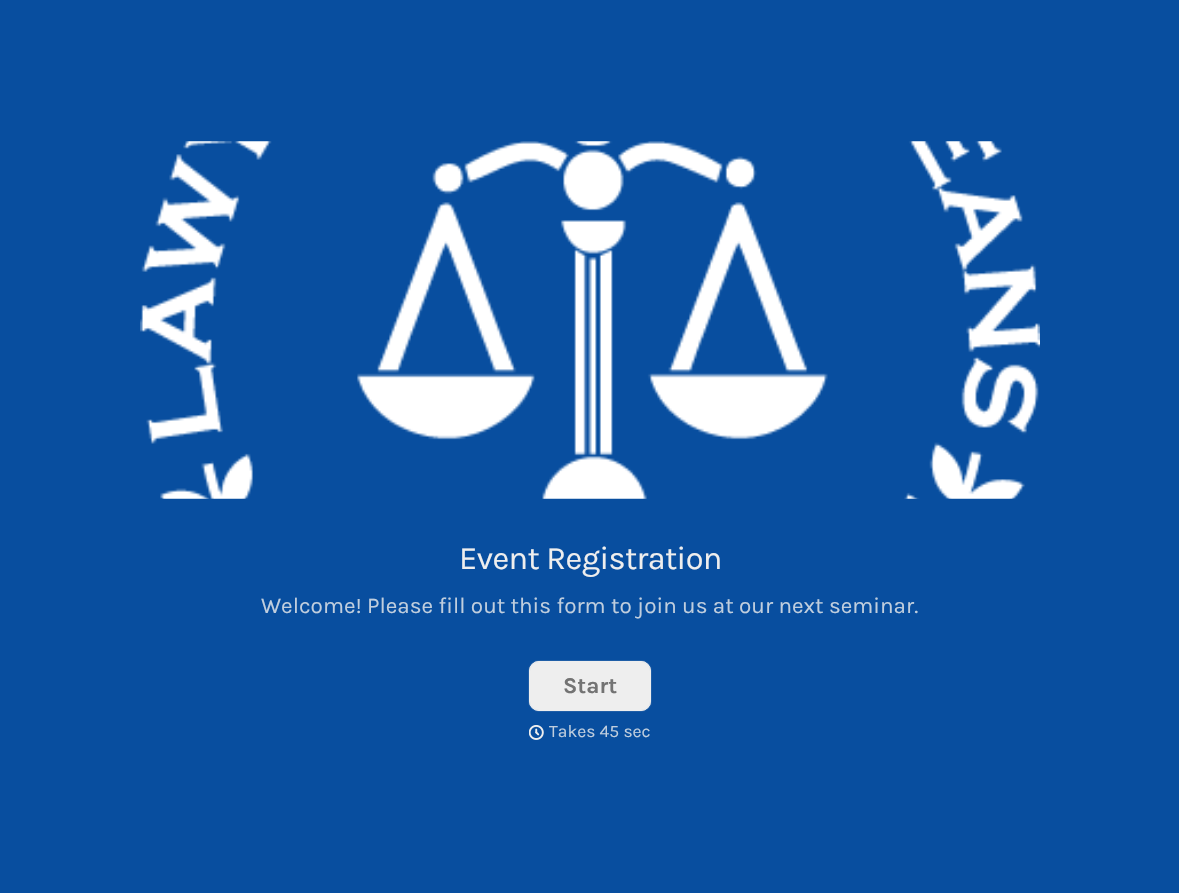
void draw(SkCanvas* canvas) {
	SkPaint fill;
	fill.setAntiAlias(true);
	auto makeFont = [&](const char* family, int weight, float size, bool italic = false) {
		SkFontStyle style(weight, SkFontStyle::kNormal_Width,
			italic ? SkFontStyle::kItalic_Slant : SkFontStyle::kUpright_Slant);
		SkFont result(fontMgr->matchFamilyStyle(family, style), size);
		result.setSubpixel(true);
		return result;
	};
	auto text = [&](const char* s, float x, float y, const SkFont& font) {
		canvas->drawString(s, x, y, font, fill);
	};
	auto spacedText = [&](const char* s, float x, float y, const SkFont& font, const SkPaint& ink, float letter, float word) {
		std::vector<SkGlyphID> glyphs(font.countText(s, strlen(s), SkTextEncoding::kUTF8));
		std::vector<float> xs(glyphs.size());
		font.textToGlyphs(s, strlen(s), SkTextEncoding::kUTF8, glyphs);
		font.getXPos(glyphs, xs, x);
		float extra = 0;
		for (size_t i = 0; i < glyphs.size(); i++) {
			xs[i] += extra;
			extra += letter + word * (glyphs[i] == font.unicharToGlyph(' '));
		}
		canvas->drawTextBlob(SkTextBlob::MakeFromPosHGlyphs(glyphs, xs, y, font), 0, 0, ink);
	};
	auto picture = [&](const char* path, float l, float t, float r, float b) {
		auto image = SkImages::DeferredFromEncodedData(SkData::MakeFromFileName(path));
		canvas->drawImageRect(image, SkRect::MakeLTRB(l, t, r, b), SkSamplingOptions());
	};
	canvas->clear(0xFF084E9F);
	picture("image0.png", 140, 141, 1040, 499);
	fill.setStyle(SkPaint::kStroke_Style);
	fill.setStrokeWidth(1);
	fill.setColor(0xFFEEEEEE);
	canvas->drawRoundRect(SkRect::MakeLTRB(529.5f, 661.5f, 650.5f, 710.5f), 9.5f, 9.5f, fill);
	fill.setStyle(SkPaint::kFill_Style);
	fill.setMaskFilter(SkMaskFilter::MakeBlur(kNormal_SkBlurStyle, 0.5f));
	canvas->drawRoundRect(SkRect::MakeLTRB(529, 661, 651, 711), 10, 10, fill);
	fill.setMaskFilter(nullptr);
	picture("image1.png", 529, 725, 544, 740);
	auto font1 = makeFont("Karla", 400, 32.5f);
	spacedText("Event Registration", 459, 569, font1, fill, -0.6f, 0);
	auto font2 = makeFont("Karla", 400, 22.5f);
	fill.setColor(0xFFC0CEDE);
	text("Welcome! Please fill out this form to join us at our next seminar.", 261, 613, font2);
	auto font3 = makeFont("Karla", 700, 22.5f);
	fill.setColor(0xFF737373);
	text("Start", 563, 693, font3);
	auto font4 = makeFont("Karla", 400, 17.5f);
	fill.setColor(0xFFC0CEDE);
	text("Takes 45 sec", 549, 737, font4);
}
